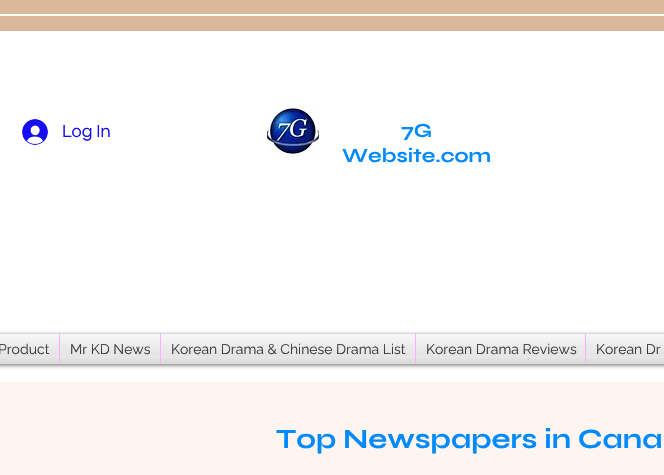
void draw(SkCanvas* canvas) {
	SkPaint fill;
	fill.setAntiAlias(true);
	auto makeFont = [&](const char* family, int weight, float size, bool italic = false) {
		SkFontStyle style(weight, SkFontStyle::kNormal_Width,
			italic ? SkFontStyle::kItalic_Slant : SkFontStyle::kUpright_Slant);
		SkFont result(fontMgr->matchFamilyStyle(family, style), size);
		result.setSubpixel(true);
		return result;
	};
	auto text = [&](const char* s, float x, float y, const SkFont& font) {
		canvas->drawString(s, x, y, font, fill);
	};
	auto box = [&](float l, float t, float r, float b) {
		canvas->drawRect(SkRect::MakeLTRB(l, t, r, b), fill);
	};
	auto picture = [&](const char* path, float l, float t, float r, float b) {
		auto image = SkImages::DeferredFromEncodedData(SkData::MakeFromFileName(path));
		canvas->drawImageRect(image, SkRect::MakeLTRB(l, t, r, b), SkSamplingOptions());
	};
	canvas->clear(0xFFFFF5F0);
	fill.setColor(0xFFDBB89A);
	box(0, 0, 664, 31);
	fill.setColor(0xFFFFFFFF);
	box(0, 14, 664, 16);
	box(0, 31, 664, 382);
	picture("image0.png", 22, 119, 48, 145);
	picture("image1.png", 267, 105, 319, 154);
	fill.setColor(0x99000000);
	fill.setMaskFilter(SkMaskFilter::MakeBlur(kNormal_SkBlurStyle, 2));
	canvas->drawRoundRect(SkRect::MakeLTRB(-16, 335, 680, 365), 10, 10, fill);
	fill.setMaskFilter(nullptr);
	fill.setColor(0xFFFFFFFF);
	box(0, 334, 59, 364);
	box(60, 334, 160, 364);
	fill.setColor(0xFFFFADFF);
	box(59, 334, 60, 364);
	fill.setColor(0xFFFFFFFF);
	box(161, 334, 415, 364);
	fill.setColor(0xFFFFADFF);
	box(160, 334, 161, 364);
	fill.setColor(0xFFFFFFFF);
	box(416, 334, 585, 364);
	fill.setColor(0xFFFFADFF);
	box(415, 334, 416, 364);
	fill.setColor(0xFFFFFFFF);
	box(586, 334, 664, 364);
	fill.setColor(0xFFFFADFF);
	box(585, 334, 586, 364);
	auto font1 = makeFont("Questrial", 400, 18);
	fill.setColor(0xFF170DF2);
	text("Log In", 62, 137, font1);
	auto font2 = makeFont("Syne", 700, 20);
	fill.setColor(0xFF008AFC);
	text("7G", 401, 137, font2);
	text("Website.com", 342, 162, font2);
	auto font3 = makeFont("Raleway", 400, 14);
	fill.setColor(0xFF000000);
	text("Product", -2, 354, font3);
	picture("image2.png", 0, 343, 49, 355);
	picture("image3.png", 0, 334, 59, 364);
	text("Mr KD News", 70, 354, font3);
	picture("image4.png", 71, 344, 150, 355);
	picture("image5.png", 60, 334, 160, 364);
	text("Korean Drama & Chinese Drama List", 171, 354, font3);
	picture("image6.png", 172, 343, 406, 355);
	picture("image7.png", 161, 334, 415, 364);
	text("Korean Drama Reviews", 426, 354, font3);
	picture("image8.png", 427, 343, 577, 355);
	picture("image9.png", 416, 334, 585, 364);
	text("Korean Dr", 596, 354, font3);
	picture("image10.png", 597, 344, 664, 355);
	picture("image11.png", 586, 334, 664, 364);
	auto font4 = makeFont("Syne", 700, 28);
	fill.setColor(0xFF008AFC);
	text("Top Newspapers in Cana", 276, 448, font4);
}
